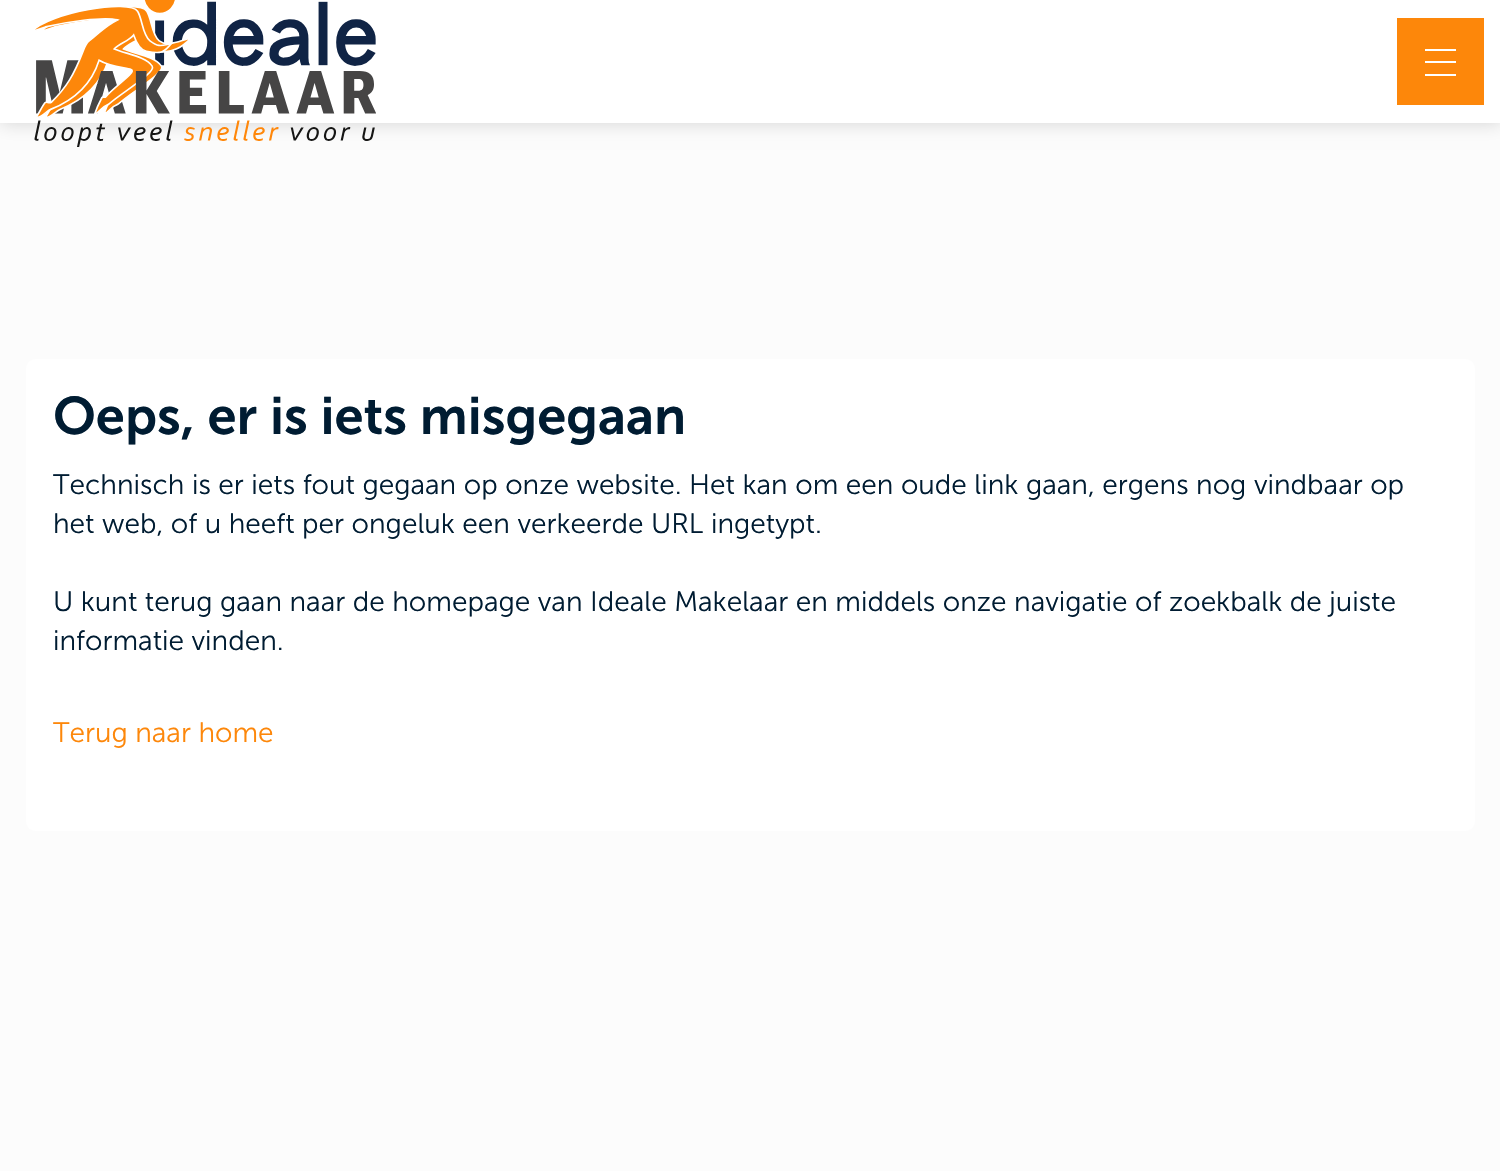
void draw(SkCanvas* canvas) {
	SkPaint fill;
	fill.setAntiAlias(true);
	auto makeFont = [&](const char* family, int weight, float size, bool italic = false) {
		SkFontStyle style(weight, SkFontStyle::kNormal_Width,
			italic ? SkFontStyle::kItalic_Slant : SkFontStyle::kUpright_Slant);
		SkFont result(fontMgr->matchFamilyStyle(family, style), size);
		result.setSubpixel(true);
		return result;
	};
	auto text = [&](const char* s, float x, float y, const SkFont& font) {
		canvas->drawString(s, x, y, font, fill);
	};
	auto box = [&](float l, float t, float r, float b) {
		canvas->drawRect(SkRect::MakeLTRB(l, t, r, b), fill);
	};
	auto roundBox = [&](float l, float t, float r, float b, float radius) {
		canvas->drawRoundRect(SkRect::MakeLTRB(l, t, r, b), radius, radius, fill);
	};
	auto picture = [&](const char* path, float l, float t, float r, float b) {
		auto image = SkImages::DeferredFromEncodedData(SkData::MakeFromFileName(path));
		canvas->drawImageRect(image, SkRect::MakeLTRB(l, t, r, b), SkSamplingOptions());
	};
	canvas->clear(0xFFFCFCFC);
	fill.setColor(0x29000000);
	fill.setMaskFilter(SkMaskFilter::MakeBlur(kNormal_SkBlurStyle, 9));
	canvas->drawRect(SkRect::MakeLTRB(0, 0, 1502, 123), fill);
	fill.setMaskFilter(nullptr);
	fill.setColor(0xFFFFFFFF);
	box(0, 0, 1500, 123);
	picture("image0.png", 34, 0, 376, 147);
	fill.setColor(0xFFFD870A);
	box(1397, 18, 1484, 105);
	fill.setColor(0xFFFFFFFF);
	box(1425, 49, 1456, 51);
	box(1425, 61, 1456, 63);
	box(1425, 74, 1456, 76);
	roundBox(26, 359, 1475, 831, 9);
	auto font1 = makeFont("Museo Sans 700", 600, 52.5f);
	fill.setColor(0xFF001C32);
	text("Oeps, er is iets misgegaan", 53, 434, font1);
	auto font2 = makeFont("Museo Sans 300", 300, 28);
	text("Technisch is er iets fout gegaan op onze website. Het kan om een oude link gaan, ergens nog vindbaar op", 53, 494, font2);
	text("het web, of u heeft per ongeluk een verkeerde URL ingetypt.", 53, 533, font2);
	text("U kunt terug gaan naar de homepage van Ideale Makelaar en middels onze navigatie of zoekbalk de juiste", 53, 611, font2);
	text("informatie vinden.", 53, 650, font2);
	fill.setColor(0xFFFD870A);
	text("Terug naar home", 53, 742, font2);
}
